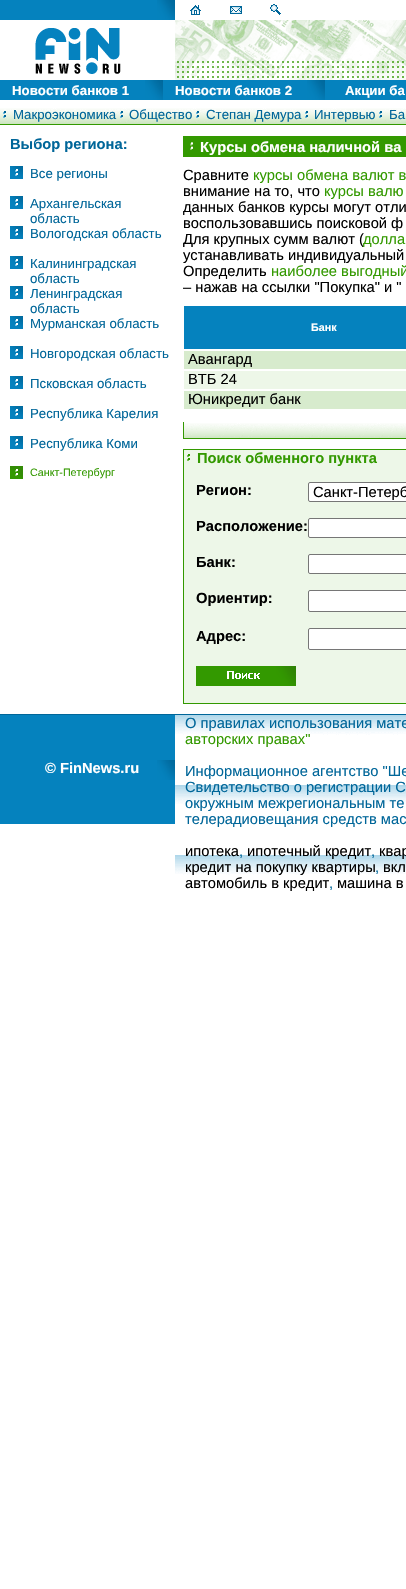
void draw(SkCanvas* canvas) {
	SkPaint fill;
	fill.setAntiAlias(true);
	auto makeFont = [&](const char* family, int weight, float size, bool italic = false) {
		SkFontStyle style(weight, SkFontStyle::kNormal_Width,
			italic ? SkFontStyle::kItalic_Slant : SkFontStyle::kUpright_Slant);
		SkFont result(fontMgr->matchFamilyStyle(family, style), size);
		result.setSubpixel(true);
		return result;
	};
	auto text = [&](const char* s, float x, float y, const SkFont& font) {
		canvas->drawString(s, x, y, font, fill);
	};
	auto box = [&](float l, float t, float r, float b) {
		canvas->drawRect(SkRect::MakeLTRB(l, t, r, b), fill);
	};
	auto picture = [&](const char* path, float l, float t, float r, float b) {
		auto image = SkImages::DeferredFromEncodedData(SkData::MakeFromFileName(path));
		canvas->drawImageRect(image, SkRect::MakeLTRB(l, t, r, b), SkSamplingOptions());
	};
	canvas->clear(0xFFFFFFFF);
	fill.setColor(0xFF0582BE);
	box(0, 0, 157, 20);
	picture("image0.png", 157, 0, 175, 20);
	picture("image1.png", 190, 5, 201, 15);
	picture("image2.png", 230, 6, 242, 14);
	picture("image3.png", 270, 4, 281, 15);
	picture("image4.png", 35, 28, 121, 74);
	picture("image5.png", 175, 20, 406, 80);
	box(0, 80, 406, 100);
	picture("image0.png", 145, 80, 163, 100);
	picture("image0.png", 307, 80, 325, 100);
	picture("image6.png", 0, 108, 406, 124);
	fill.setColor(0xFF339900);
	box(0, 124, 406, 125);
	picture("image7.png", 10, 166, 23, 179);
	picture("image7.png", 10, 196, 23, 209);
	picture("image7.png", 10, 226, 23, 239);
	picture("image7.png", 10, 256, 23, 269);
	picture("image7.png", 10, 286, 23, 299);
	picture("image7.png", 10, 316, 23, 329);
	picture("image7.png", 10, 346, 23, 359);
	picture("image7.png", 10, 376, 23, 389);
	picture("image7.png", 10, 406, 23, 419);
	picture("image7.png", 10, 436, 23, 449);
	picture("image8.png", 10, 466, 23, 479);
	box(183, 136, 406, 157);
	picture("image9.png", 190, 142, 193, 150);
	fill.setColor(0xFF0582BE);
	box(184, 306, 406, 349);
	fill.setColor(0xFFD7EBCD);
	box(184, 351, 406, 369);
	fill.setColor(0xFFEDF7E8);
	box(184, 371, 406, 389);
	fill.setColor(0xFFD7EBCD);
	box(184, 391, 406, 409);
	picture("image10.png", 184, 423, 406, 438);
	fill.setColor(0xFF339900);
	box(183, 438, 406, 439);
	box(183, 422, 184, 439);
	fill.setColor(0xFFEDF7E8);
	canvas->drawRect(SkRect::MakeLTRB(183.5f, 449.5f, 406.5f, 703.5f), fill);
	fill.setStyle(SkPaint::kStroke_Style);
	fill.setStrokeWidth(1);
	fill.setColor(0xFF339900);
	canvas->drawRect(SkRect::MakeLTRB(183.5f, 449.5f, 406.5f, 703.5f), fill);
	picture("image11.png", 187, 454, 190, 461);
	fill.setStyle(SkPaint::kFill_Style);
	fill.setColor(0xFFFFFFFF);
	canvas->drawRoundRect(SkRect::MakeLTRB(308.5f, 482.5f, 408.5f, 501.5f), 1.5f, 1.5f, fill);
	fill.setStyle(SkPaint::kStroke_Style);
	fill.setColor(0xFF767676);
	canvas->drawRoundRect(SkRect::MakeLTRB(308.5f, 482.5f, 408.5f, 501.5f), 1.5f, 1.5f, fill);
	fill.setStyle(SkPaint::kFill_Style);
	fill.setColor(0xFFFFFFFF);
	canvas->drawRoundRect(SkRect::MakeLTRB(308.5f, 518.5f, 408.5f, 537.5f), 1.5f, 1.5f, fill);
	fill.setStyle(SkPaint::kStroke_Style);
	fill.setColor(0xFF767676);
	canvas->drawRoundRect(SkRect::MakeLTRB(308.5f, 518.5f, 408.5f, 537.5f), 1.5f, 1.5f, fill);
	fill.setStyle(SkPaint::kFill_Style);
	fill.setColor(0xFFFFFFFF);
	canvas->drawRoundRect(SkRect::MakeLTRB(308.5f, 554.5f, 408.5f, 573.5f), 1.5f, 1.5f, fill);
	fill.setStyle(SkPaint::kStroke_Style);
	fill.setColor(0xFF767676);
	canvas->drawRoundRect(SkRect::MakeLTRB(308.5f, 554.5f, 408.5f, 573.5f), 1.5f, 1.5f, fill);
	fill.setStyle(SkPaint::kFill_Style);
	fill.setColor(0xFFFFFFFF);
	canvas->drawRoundRect(SkRect::MakeLTRB(308.5f, 590.5f, 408.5f, 611.5f), 1.5f, 1.5f, fill);
	fill.setStyle(SkPaint::kStroke_Style);
	fill.setColor(0xFF767676);
	canvas->drawRoundRect(SkRect::MakeLTRB(308.5f, 590.5f, 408.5f, 611.5f), 1.5f, 1.5f, fill);
	fill.setStyle(SkPaint::kFill_Style);
	fill.setColor(0xFFFFFFFF);
	canvas->drawRoundRect(SkRect::MakeLTRB(308.5f, 628.5f, 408.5f, 649.5f), 1.5f, 1.5f, fill);
	fill.setStyle(SkPaint::kStroke_Style);
	fill.setColor(0xFF767676);
	canvas->drawRoundRect(SkRect::MakeLTRB(308.5f, 628.5f, 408.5f, 649.5f), 1.5f, 1.5f, fill);
	picture("image12.png", 196, 666, 296, 686);
	fill.setStyle(SkPaint::kFill_Style);
	fill.setColor(0xFF0582BE);
	box(0, 715, 175, 824);
	fill.setColor(0xFF006699);
	box(0, 714, 406, 715);
	picture("image0.png", 157, 760, 175, 780);
	picture("image13.png", 175, 715, 406, 875);
	picture("image14.png", 3, 111, 6, 118);
	picture("image14.png", 120, 111, 123, 118);
	picture("image14.png", 196, 111, 199, 118);
	picture("image14.png", 305, 111, 308, 118);
	picture("image15.png", 379, 111, 382, 118);
	auto font1 = makeFont("Liberation Sans", 700, 13.25f);
	fill.setColor(0xFFFFFFFF);
	text("Новости банков 1", 12, 95, font1);
	text("Новости банков 2", 175, 95, font1);
	text("Акции ба", 345, 95, font1);
	auto font2 = makeFont("Liberation Sans", 700, 14.7f);
	fill.setColor(0xFF006699);
	text("Выбор региона:", 10, 149, font2);
	auto font3 = makeFont("Liberation Sans", 400, 13.25f);
	text("Все регионы", 30, 178, font3);
	text("Архангельская", 30, 208, font3);
	text("область", 30, 223, font3);
	text("Вологодская область", 30, 238, font3);
	text("Калининградская", 30, 268, font3);
	text("область", 30, 283, font3);
	text("Ленинградская", 30, 298, font3);
	text("область", 30, 313, font3);
	text("Мурманская область", 30, 328, font3);
	text("Новгородская область", 30, 358, font3);
	text("Псковская область", 30, 388, font3);
	text("Республика Карелия", 30, 418, font3);
	text("Республика Коми", 30, 448, font3);
	auto font4 = makeFont("Liberation Sans", 400, 10.75f);
	fill.setColor(0xFF339900);
	text("Санкт-Петербург", 30, 476, font4);
	fill.setColor(0xFFFFFFFF);
	text("Курсы обмена наличной ва", 200, 152, font2);
	auto font5 = makeFont("Liberation Sans", 400, 14.7f);
	fill.setColor(0xFF000000);
	text("Сравните", 183, 180, font5);
	fill.setColor(0xFF339900);
	text("курсы обмена валют в", 253, 180, font5);
	fill.setColor(0xFF000000);
	text("внимание на то, что", 183, 196, font5);
	fill.setColor(0xFF339900);
	text("курсы валю", 324, 196, font5);
	fill.setColor(0xFF000000);
	text("данных банков курсы могут отли", 183, 212, font5);
	text("воспользовавшись поисковой ф", 183, 228, font5);
	text("Для крупных сумм валют (", 183, 244, font5);
	fill.setColor(0xFF339900);
	text("долла", 363, 244, font5);
	fill.setColor(0xFF000000);
	text("устанавливать индивидуальный", 183, 260, font5);
	text("Определить", 183, 276, font5);
	fill.setColor(0xFF339900);
	text("наиболее выгодный", 271, 276, font5);
	fill.setColor(0xFF000000);
	text("– нажав на ссылки \"Покупка\" и \"", 183, 292, font5);
	auto font6 = makeFont("Liberation Sans", 700, 10.75f);
	fill.setColor(0xFFFFFFFF);
	text("Банк", 311, 331, font6);
	fill.setColor(0xFF000000);
	text("Авангард", 188, 364, font5);
	text("ВТБ 24", 188, 384, font5);
	text("Юникредит банк", 188, 404, font5);
	fill.setColor(0xFF339900);
	text("Поиск обменного пункта", 197, 463, font2);
	fill.setColor(0xFF000000);
	text("Регион:", 196, 495, font2);
	text("Санкт-Петерб", 313, 497, font5);
	text("Расположение:", 196, 531, font2);
	text("Банк:", 196, 567, font2);
	text("Ориентир:", 196, 603, font2);
	text("Адрес:", 196, 641, font2);
	fill.setColor(0xFFFFFFFF);
	text("© FinNews.ru", 45, 773, font2);
	fill.setColor(0xFF006699);
	text("О правилах использования мате", 185, 728, font5);
	fill.setColor(0xFF339900);
	text("авторских правах\"", 185, 744, font5);
	fill.setColor(0xFF006699);
	text("Информационное агентство \"Ше", 185, 776, font5);
	text("Свидетельство о регистрации С", 185, 792, font5);
	text("окружным межрегиональным те", 185, 808, font5);
	text("телерадиовещания средств мас", 185, 824, font5);
	fill.setColor(0xFF000000);
	text("ипотека", 185, 856, font5);
	fill.setColor(0xFF006699);
	text(",", 239, 856, font5);
	fill.setColor(0xFF000000);
	text("ипотечный кредит", 247, 856, font5);
	fill.setColor(0xFF006699);
	text(",", 371, 856, font5);
	fill.setColor(0xFF000000);
	text("квар", 379, 856, font5);
	text("кредит на покупку квартиры", 185, 872, font5);
	fill.setColor(0xFF006699);
	text(",", 375, 872, font5);
	fill.setColor(0xFF000000);
	text("вкл", 383, 872, font5);
	text("автомобиль в кредит", 185, 888, font5);
	fill.setColor(0xFF006699);
	text(",", 329, 888, font5);
	fill.setColor(0xFF000000);
	text("машина в", 337, 888, font5);
	fill.setColor(0xFF006699);
	text("Макроэкономика", 13, 119, font3);
	text("Общество", 129, 119, font3);
	text("Степан Демура", 206, 119, font3);
	text("Интервью", 314, 119, font3);
	text("Ба", 389, 119, font3);
}
